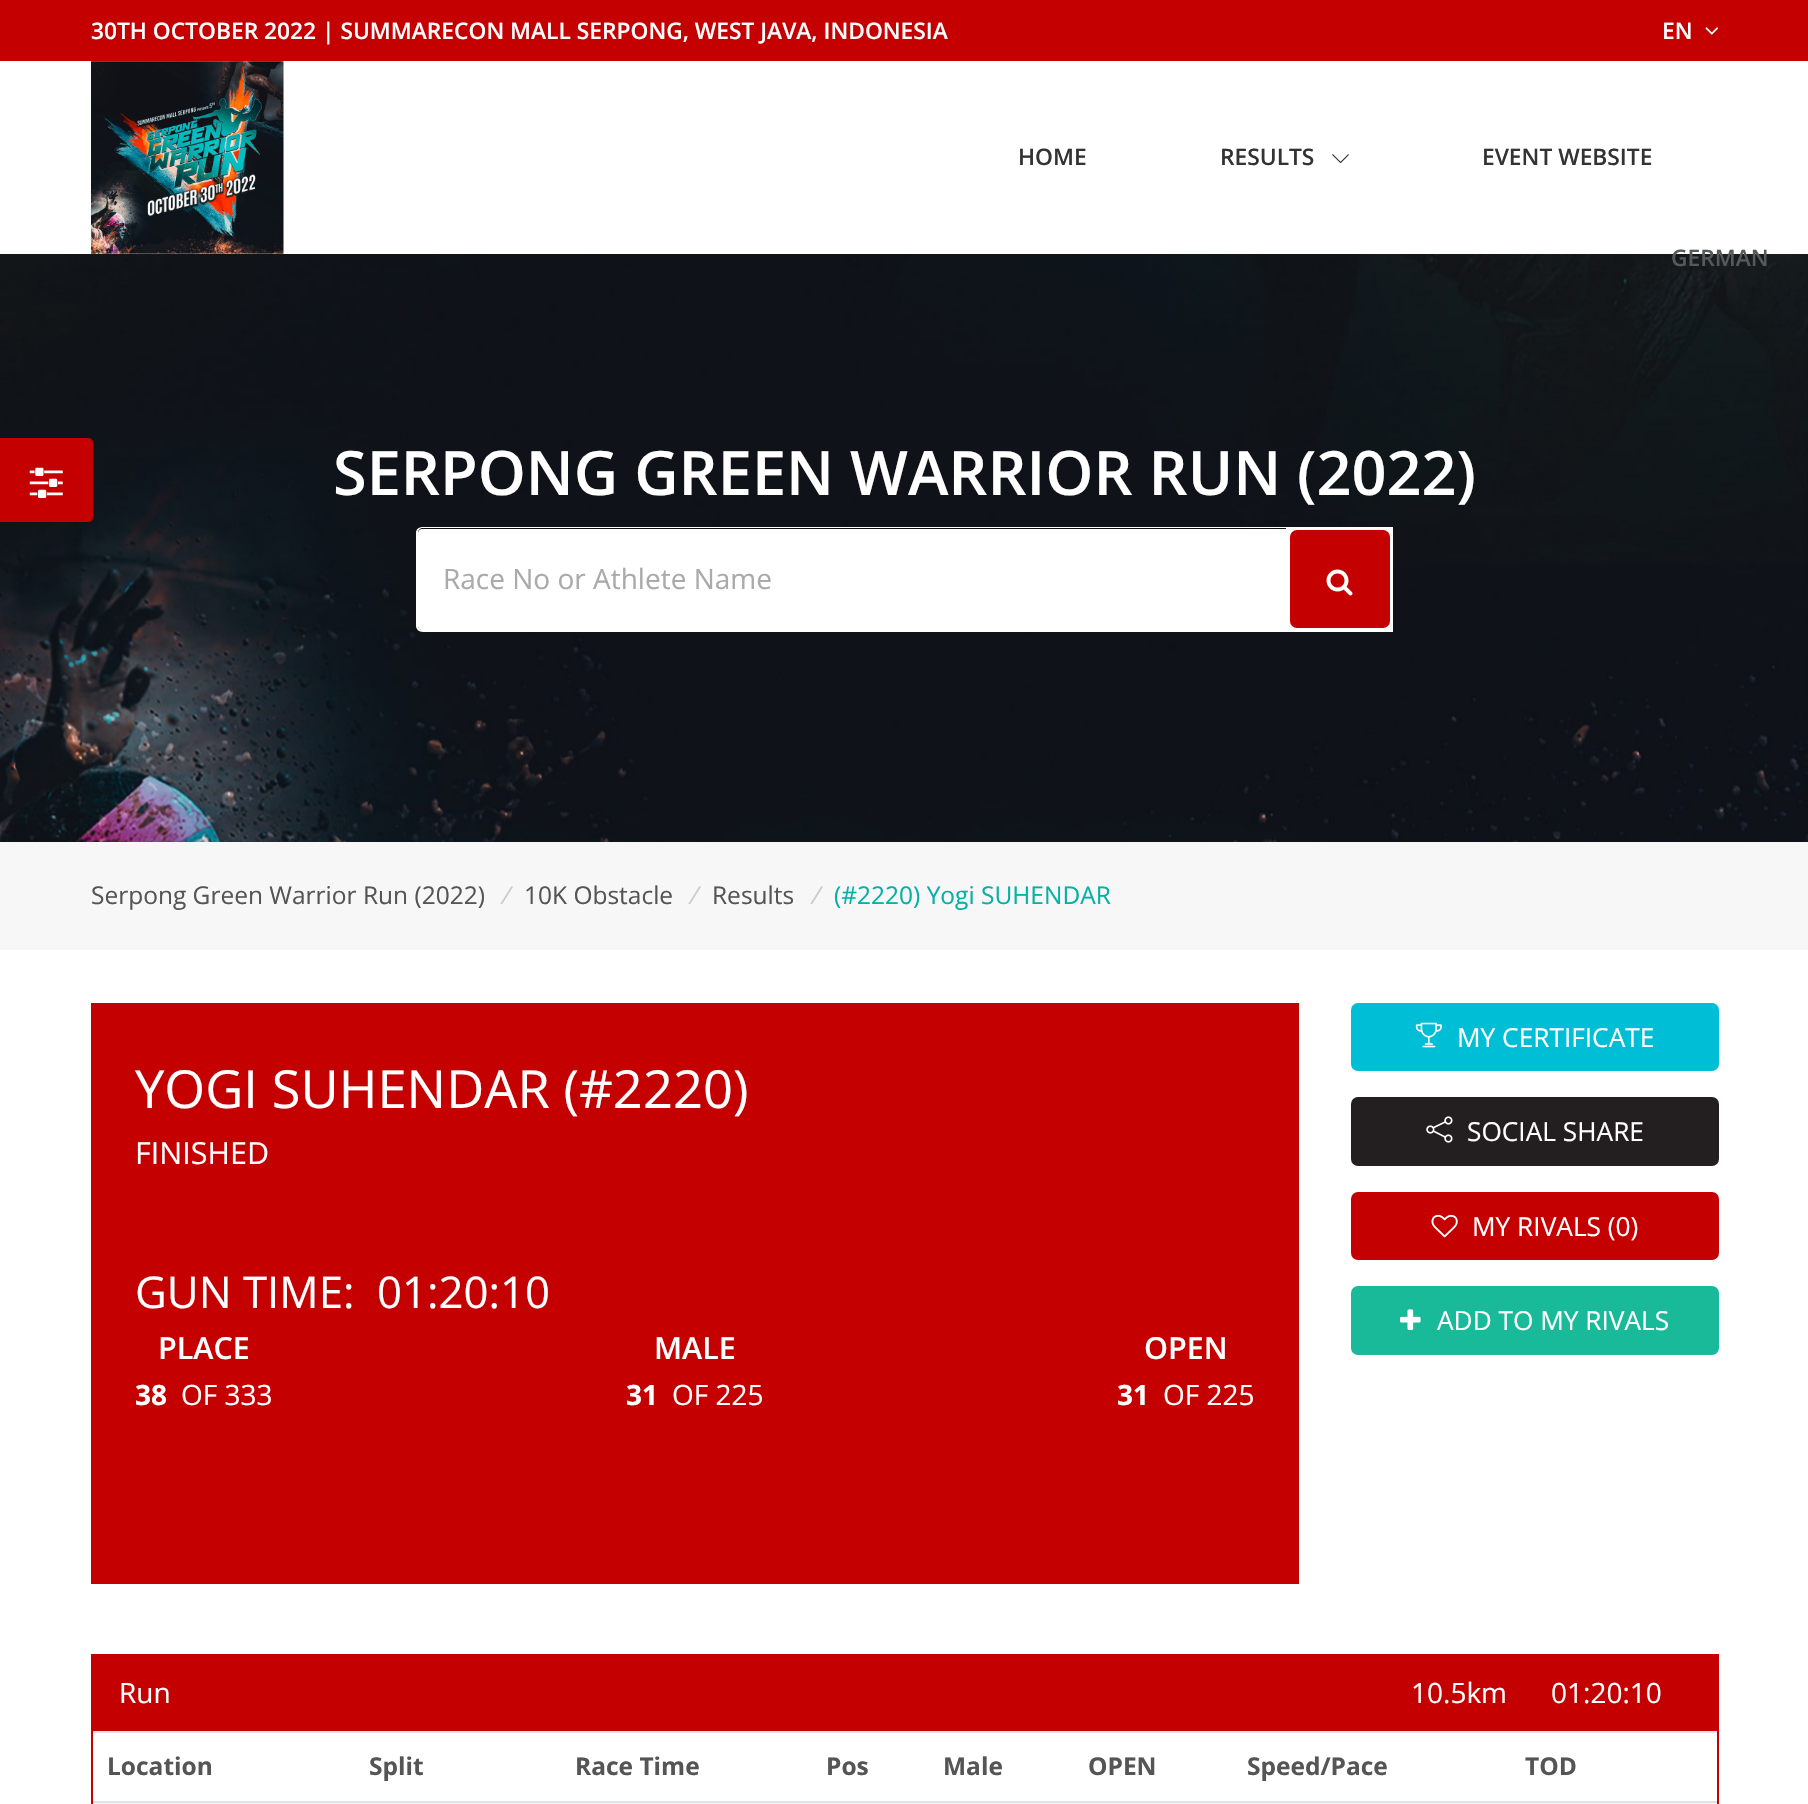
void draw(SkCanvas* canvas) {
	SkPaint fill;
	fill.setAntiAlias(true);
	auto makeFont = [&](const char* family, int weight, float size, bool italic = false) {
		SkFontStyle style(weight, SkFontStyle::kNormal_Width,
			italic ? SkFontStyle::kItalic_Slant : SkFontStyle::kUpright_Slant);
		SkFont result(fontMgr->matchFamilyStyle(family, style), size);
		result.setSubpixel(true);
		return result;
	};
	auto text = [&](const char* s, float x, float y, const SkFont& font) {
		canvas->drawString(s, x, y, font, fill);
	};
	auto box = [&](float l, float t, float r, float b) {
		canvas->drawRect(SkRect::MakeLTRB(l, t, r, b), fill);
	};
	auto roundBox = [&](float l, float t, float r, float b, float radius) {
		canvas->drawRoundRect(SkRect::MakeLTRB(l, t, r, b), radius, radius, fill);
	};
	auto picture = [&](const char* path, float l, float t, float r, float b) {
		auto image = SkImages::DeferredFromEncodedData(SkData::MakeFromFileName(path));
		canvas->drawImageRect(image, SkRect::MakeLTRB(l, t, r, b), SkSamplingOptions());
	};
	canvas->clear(0xFFFFFFFF);
	fill.setColor(0xFFC40000);
	box(0, 0, 1808, 61);
	picture("image0.png", 1705, 27, 1719, 35);
	picture("image1.png", 91, 61, 284, 254);
	picture("image2.png", 1332, 154, 1349, 164);
	picture("image4.png", 0, 254, 1808, 842);
	canvas->drawPath(SkPathBuilder().moveTo(0, 438).lineTo(88, 438).cubicTo(91, 438, 93, 440, 93, 443).lineTo(93, 517).cubicTo(93, 520, 91, 522, 88, 522).lineTo(0, 522).close().detach(), fill);
	picture("image3.png", 29, 467, 63, 498);
	fill.setColor(0xFFFFFFFF);
	canvas->drawPath(SkPathBuilder().moveTo(422, 529).lineTo(1286, 529).lineTo(1286, 630).lineTo(422, 630).cubicTo(420, 630, 418, 628, 418, 626).lineTo(418, 533).cubicTo(418, 531, 420, 529, 422, 529).close().detach(), fill);
	canvas->drawPath(SkPathBuilder(SkPathFillType::kEvenOdd).moveTo(423, 527).lineTo(1286, 527).lineTo(1286, 632).lineTo(423, 632).cubicTo(419, 632, 416, 629, 416, 626).lineTo(416, 533).cubicTo(416, 529, 419, 527, 423, 527).close().moveTo(423, 528).lineTo(1286, 528).lineTo(1286, 630).lineTo(423, 630).cubicTo(420, 630, 418, 628, 418, 626).lineTo(418, 533).cubicTo(418, 530, 420, 528, 423, 528).close().detach(), fill);
	box(1286, 527, 1393, 632);
	fill.setColor(0xFFC40000);
	roundBox(1290, 530, 1390, 628, 7);
	picture("image5.png", 1326, 569, 1353, 596);
	fill.setColor(0xFFF7F7F7);
	box(0, 842, 1808, 950);
	fill.setColor(0xFFC40000);
	box(91, 1003, 1299, 1584);
	fill.setColor(0xFF00BED6);
	roundBox(1351, 1003, 1719, 1071, 7);
	picture("image6.png", 1415, 1022, 1442, 1048);
	fill.setColor(0xFF231F20);
	roundBox(1351, 1097, 1719, 1166, 7);
	picture("image7.png", 1426, 1116, 1453, 1143);
	fill.setColor(0xFFC40000);
	roundBox(1351, 1192, 1719, 1260, 7);
	picture("image8.png", 1431, 1214, 1458, 1238);
	fill.setColor(0xFF19BA9A);
	roundBox(1351, 1286, 1719, 1355, 7);
	picture("image9.png", 1400, 1309, 1421, 1330);
	fill.setStyle(SkPaint::kStroke_Style);
	fill.setStrokeWidth(2);
	fill.setColor(0xFFC40000);
	canvas->drawRect(SkRect::MakeLTRB(92, 1655, 1718, 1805), fill);
	fill.setStyle(SkPaint::kFill_Style);
	box(93, 1656, 1717, 1731);
	fill.setColor(0xFFDEE2E6);
	box(93, 1731, 1717, 1733);
	box(93, 1801, 1717, 1803);
	fill.setColor(0xFFF7F7F7);
	box(93, 1803, 1717, 1804);
	auto font1 = makeFont("Open Sans", 600, 22.75f);
	fill.setColor(0xFFFFFFFF);
	text("30TH OCTOBER 2022 | SUMMARECON MALL SERPONG, WEST JAVA, INDONESIA", 91, 39, font1);
	text("EN", 1662, 39, font1);
	fill.setColor(0xFF56595B);
	text("GERMAN", 1671, 266, font1);
	fill.setColor(0xFF333333);
	text("HOME", 1018, 165, font1);
	text("RESULTS", 1220, 165, font1);
	text("EVENT WEBSITE", 1482, 165, font1);
	auto font2 = makeFont("Open Sans", 600, 61.25f);
	fill.setColor(0xFFFFFFFF);
	text("SERPONG GREEN WARRIOR RUN (2022)", 333, 495, font2);
	auto font3 = makeFont("Open Sans", 400, 28);
	fill.setColor(0xFFAAAAAA);
	text("Race No or Athlete Name", 443, 589, font3);
	auto font4 = makeFont("Open Sans", 400, 24.5f);
	fill.setColor(0xFF555555);
	text("Serpong Green Warrior Run (2022)", 91, 904, font4);
	auto font5 = makeFont("Open Sans", 400, 24.5f, true);
	fill.setColor(0xFFCCCCCC);
	text("/", 500, 904, font5);
	fill.setColor(0xFF555555);
	text("10K Obstacle", 524, 904, font4);
	fill.setColor(0xFFCCCCCC);
	text("/", 688, 904, font5);
	fill.setColor(0xFF555555);
	text("Results", 712, 904, font4);
	fill.setColor(0xFFCCCCCC);
	text("/", 810, 904, font5);
	fill.setColor(0xFF05B0A5);
	text("(#2220) Yogi SUHENDAR", 834, 904, font4);
	auto font6 = makeFont("Open Sans", 400, 52.5f);
	fill.setColor(0xFFFFFFFF);
	text("YOGI SUHENDAR (#2220)", 135, 1108, font6);
	auto font7 = makeFont("Open Sans", 400, 30.5f);
	text("FINISHED", 135, 1164, font7);
	auto font8 = makeFont("Open Sans", 400, 43.75f);
	text("GUN TIME:", 135, 1308, font8);
	text("01:20:10", 377, 1308, font8);
	auto font9 = makeFont("Open Sans", 600, 30.5f);
	text("PLACE", 158, 1359, font9);
	auto font10 = makeFont("Open Sans", 700, 28);
	text("38", 135, 1405, font10);
	text("OF 333", 181, 1405, font3);
	text("MALE", 654, 1359, font9);
	text("31", 626, 1405, font10);
	text("OF 225", 672, 1405, font3);
	text("OPEN", 1144, 1359, font9);
	text("31", 1117, 1405, font10);
	text("OF 225", 1163, 1405, font3);
	auto font11 = makeFont("Open Sans", 400, 26.25f);
	text("MY CERTIFICATE", 1457, 1047, font11);
	text("SOCIAL SHARE", 1467, 1141, font11);
	text("MY RIVALS (0)", 1472, 1236, font11);
	text("ADD TO MY RIVALS", 1437, 1330, font11);
	text("Run", 119, 1703, font3);
	text("10.5km", 1411, 1703, font3);
	text("01:20:10", 1551, 1703, font3);
	auto font12 = makeFont("Open Sans", 700, 24.5f);
	fill.setColor(0xFF555555);
	text("Location", 107, 1775, font12);
	text("Split", 369, 1775, font12);
	text("Race Time", 575, 1775, font12);
	text("Pos", 826, 1775, font12);
	text("Male", 943, 1775, font12);
	text("OPEN", 1088, 1775, font12);
	text("Speed/Pace", 1247, 1775, font12);
	text("TOD", 1525, 1775, font12);
}
